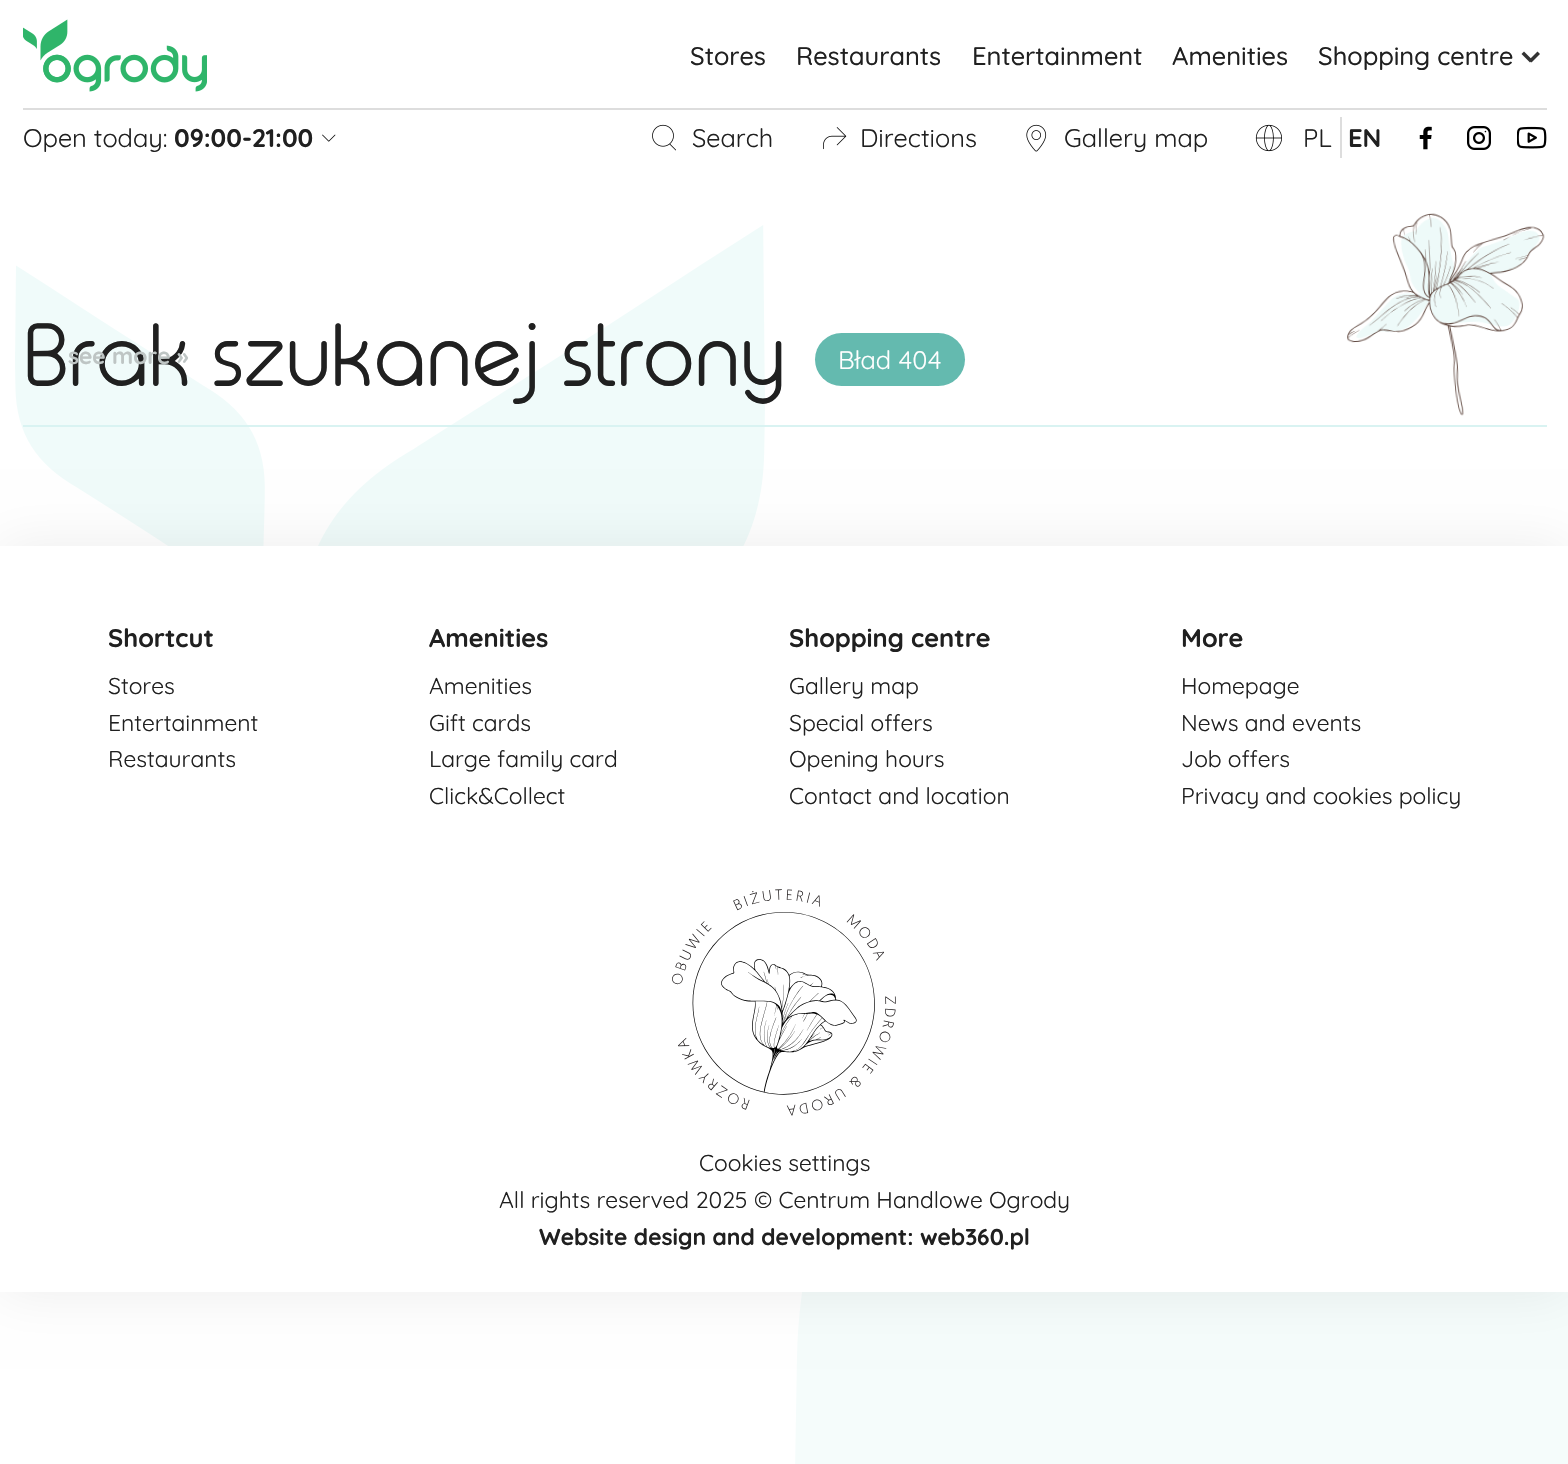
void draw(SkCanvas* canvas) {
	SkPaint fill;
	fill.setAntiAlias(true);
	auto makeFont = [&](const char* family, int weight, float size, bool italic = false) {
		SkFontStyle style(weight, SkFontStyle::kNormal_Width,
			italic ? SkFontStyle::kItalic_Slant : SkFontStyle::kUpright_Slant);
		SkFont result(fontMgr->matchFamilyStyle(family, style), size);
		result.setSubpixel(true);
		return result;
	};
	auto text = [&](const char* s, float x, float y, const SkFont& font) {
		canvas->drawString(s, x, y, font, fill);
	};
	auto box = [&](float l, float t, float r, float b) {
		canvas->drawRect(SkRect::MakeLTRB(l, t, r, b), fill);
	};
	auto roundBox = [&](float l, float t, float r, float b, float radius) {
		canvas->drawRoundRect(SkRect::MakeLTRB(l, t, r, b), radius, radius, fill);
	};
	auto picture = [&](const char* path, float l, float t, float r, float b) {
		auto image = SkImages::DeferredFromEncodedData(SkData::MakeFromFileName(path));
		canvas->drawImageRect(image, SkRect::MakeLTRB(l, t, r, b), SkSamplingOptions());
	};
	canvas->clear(0xFFFFFFFF);
	picture("image0.png", 23, 19, 207, 92);
	fill.setColor(0xFF333333);
	canvas->drawPath(SkPathBuilder().moveTo(1524, 51.5f).lineTo(1532.5f, 60).lineTo(1530, 62.5f).lineTo(1521.5f, 54).close().detach(), fill);
	canvas->drawPath(SkPathBuilder().moveTo(1529, 60).lineTo(1537.5f, 51.5f).lineTo(1540, 54).lineTo(1531.5f, 62.5f).close().detach(), fill);
	fill.setColor(0xFFDDDDDD);
	box(23, 108, 1547, 110);
	picture("image1.png", 322, 134, 336, 142);
	picture("image2.png", 652, 124, 676, 151);
	picture("image3.png", 823, 127, 847, 150);
	picture("image4.png", 1026, 124, 1047, 152);
	picture("image5.png", 1255, 124, 1282, 152);
	box(1340, 117, 1342, 158);
	picture("image6.png", 1419, 126, 1432, 150);
	picture("image7.png", 1467, 126, 1491, 150);
	picture("image8.png", 1517, 126, 1547, 149);
	picture("image9.png", 15, 225, 765, 546);
	fill.setColor(0xFFD9F3F2);
	box(23, 425, 1547, 427);
	fill.setColor(0xFF64BAAF);
	roundBox(815, 333, 965, 386, 26.5f);
	picture("image10.png", 1347, 213, 1545, 416);
	picture("image11.png", 795, 1292, 1568, 1464);
	fill.setColor(0x12000000);
	fill.setMaskFilter(SkMaskFilter::MakeBlur(kNormal_SkBlurStyle, 26));
	canvas->drawRect(SkRect::MakeLTRB(0, 546, 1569, 1292), fill);
	fill.setMaskFilter(nullptr);
	fill.setColor(0xFFFFFFFF);
	box(0, 546, 1568, 1292);
	picture("image12.png", 672, 889, 896, 1116);
	auto font1 = makeFont("Quicksand", 500, 25.5f);
	fill.setColor(0xFF202020);
	text("Stores", 690, 65, font1);
	text("Restaurants", 796, 65, font1);
	text("Entertainment", 972, 65, font1);
	text("Amenities", 1172, 65, font1);
	text("Shopping centre", 1318, 65, font1);
	auto font2 = makeFont("Quicksand", 400, 25.5f);
	text("Open today:", 23, 147, font2);
	auto font3 = makeFont("Quicksand", 700, 25.5f);
	text("09:00-21:00", 174, 147, font3);
	text("Search", 692, 147, font2);
	text("Directions", 860, 147, font2);
	text("Gallery map", 1064, 147, font2);
	text("PL", 1303, 147, font2);
	text("EN", 1348, 147, font3);
	auto font4 = makeFont("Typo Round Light", 300, 89.25f);
	text("Brak szukanej strony", 23, 386, font4);
	auto font5 = makeFont("Quicksand", 700, 22.95f);
	fill.setColor(0xFFBEC5C4);
	text("see more »", 68, 364, font5);
	fill.setColor(0xFFFFFFFF);
	text("Bład 404", 838, 369, font2);
	fill.setColor(0xFF202020);
	text("Shortcut", 108, 647, font3);
	auto font6 = makeFont("Quicksand", 400, 22.95f);
	text("Stores", 108, 694, font6);
	text("Entertainment", 108, 731, font6);
	text("Restaurants", 108, 767, font6);
	text("Amenities", 429, 647, font3);
	text("Amenities", 429, 694, font6);
	text("Gift cards", 429, 731, font6);
	text("Large family card", 429, 767, font6);
	text("Click&Collect", 429, 804, font6);
	text("Shopping centre", 789, 647, font3);
	text("Gallery map", 789, 694, font6);
	text("Special offers", 789, 731, font6);
	text("Opening hours", 789, 767, font6);
	text("Contact and location", 789, 804, font6);
	text("More", 1181, 647, font3);
	text("Homepage", 1181, 694, font6);
	text("News and events", 1181, 731, font6);
	text("Job offers", 1181, 767, font6);
	text("Privacy and cookies policy", 1181, 804, font6);
	text("Cookies settings", 699, 1171, font6);
	text("All rights reserved 2025 © Centrum Handlowe Ogrody", 499, 1208, font6);
	text("Website design and development: web360.pl", 539, 1245, font5);
}
